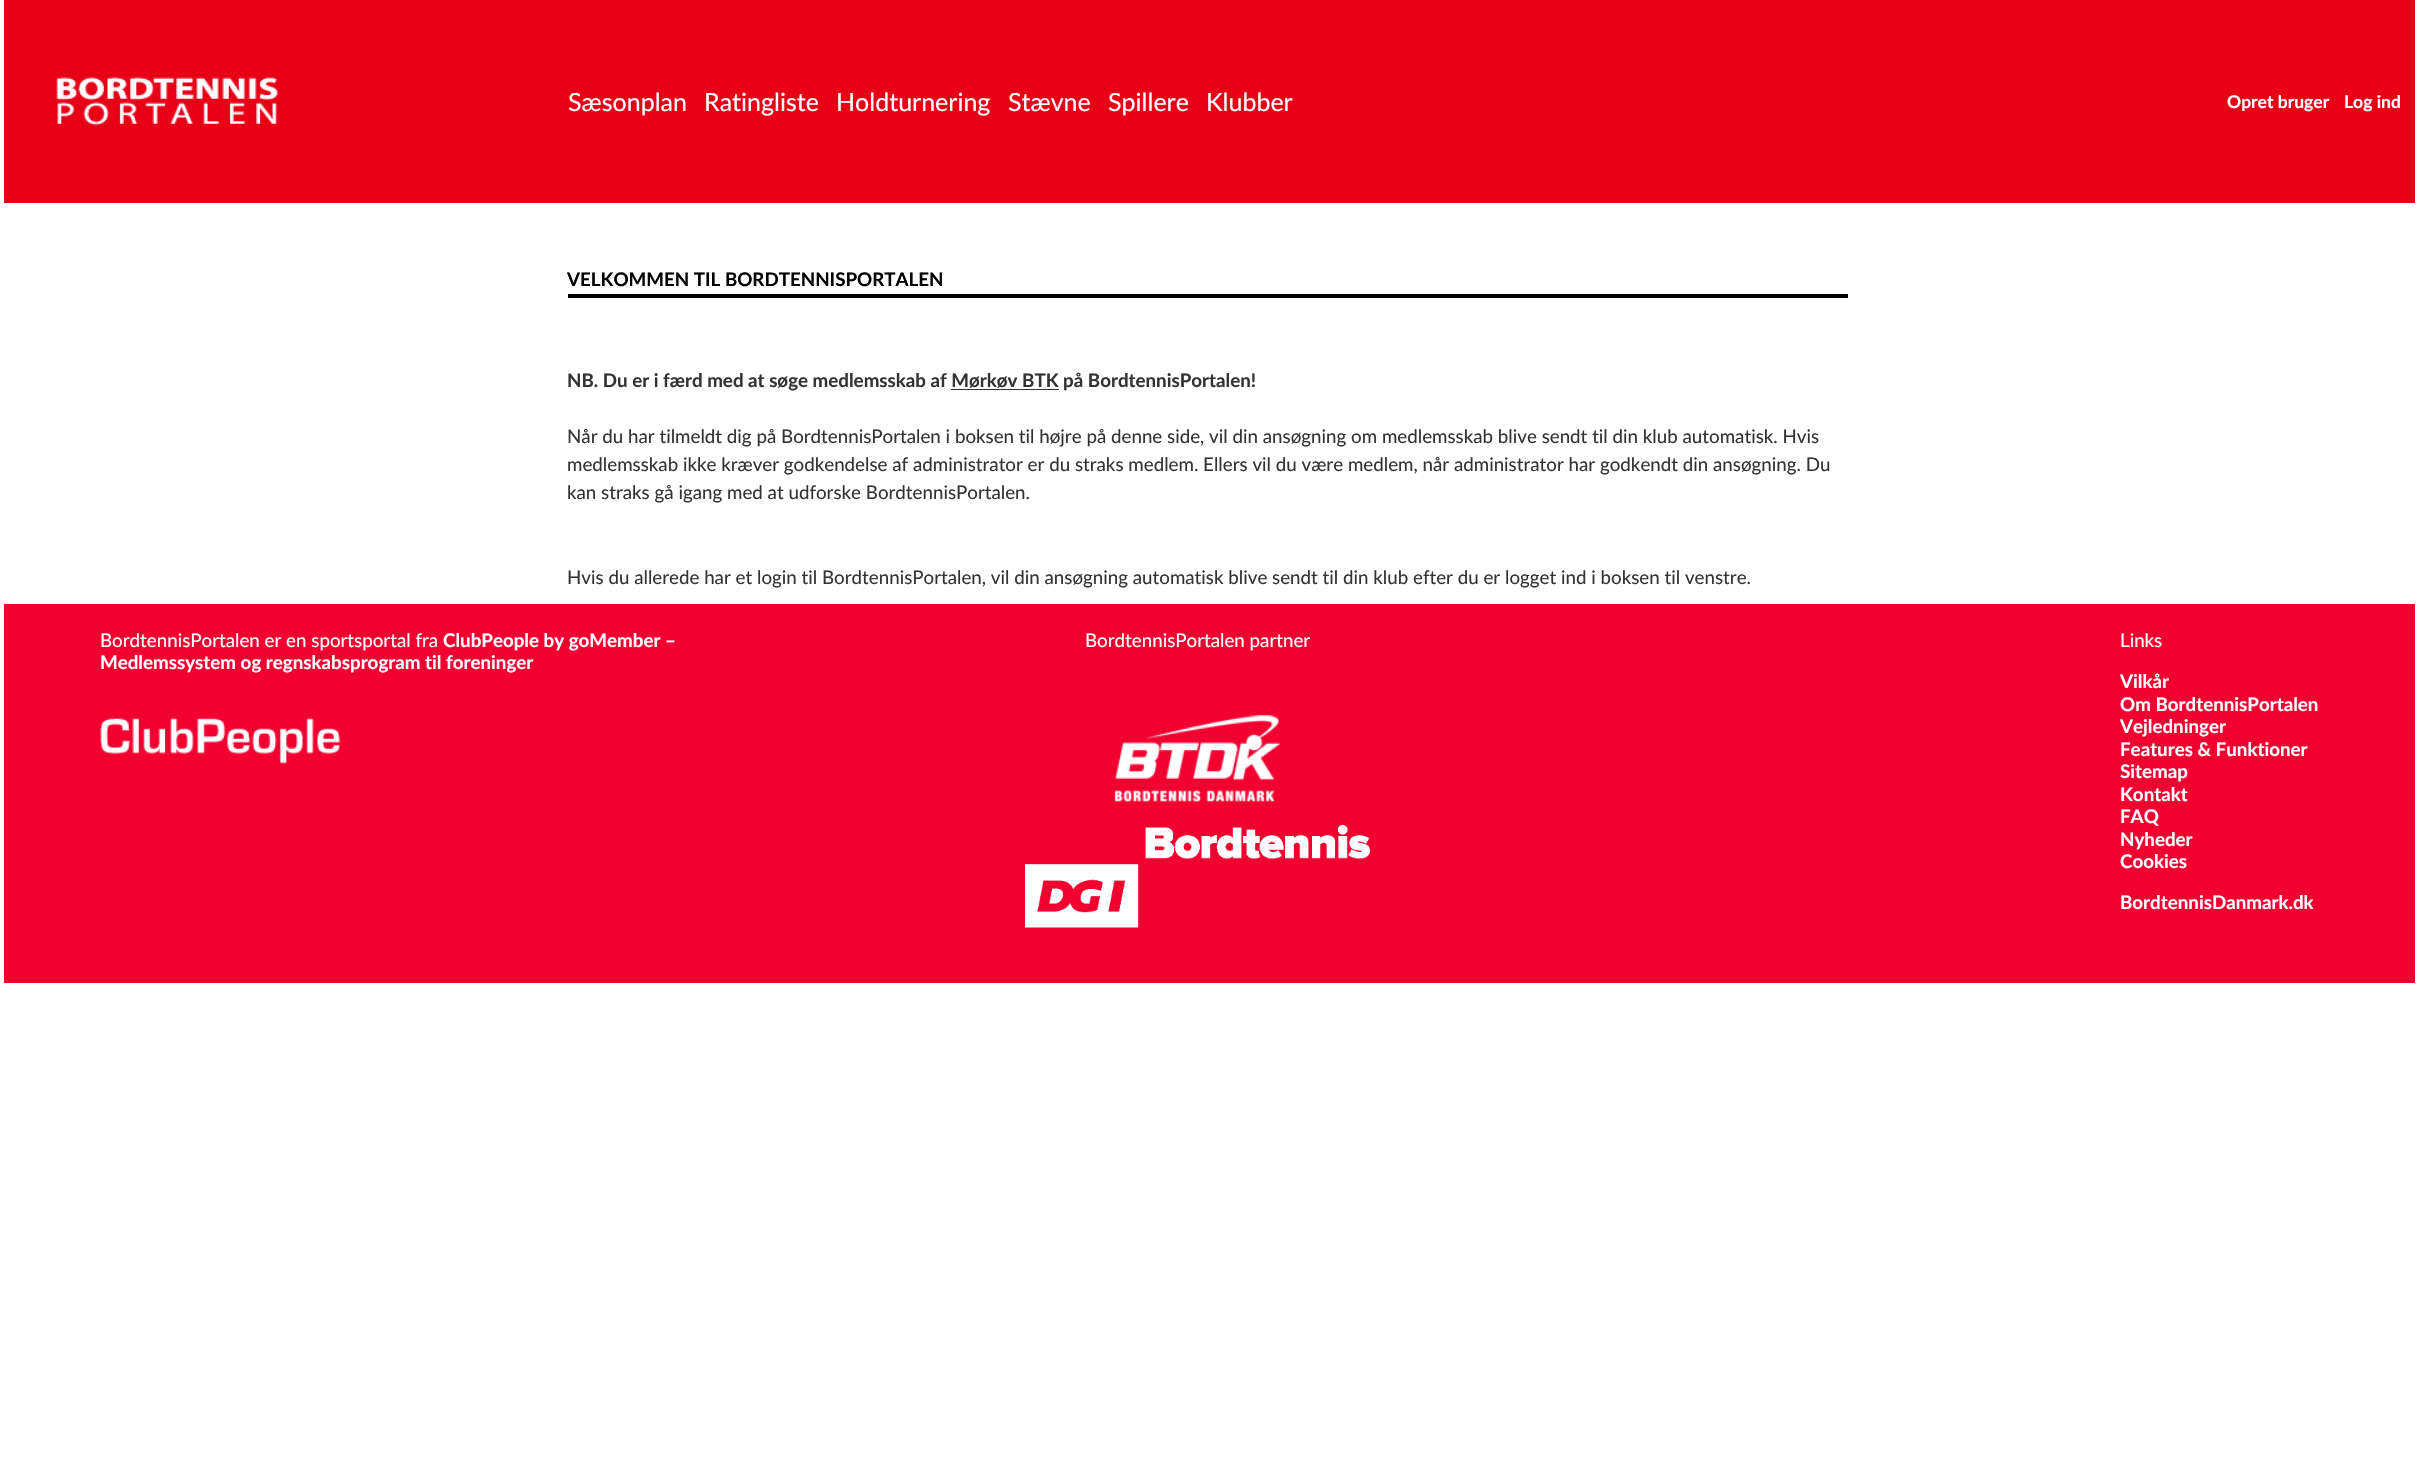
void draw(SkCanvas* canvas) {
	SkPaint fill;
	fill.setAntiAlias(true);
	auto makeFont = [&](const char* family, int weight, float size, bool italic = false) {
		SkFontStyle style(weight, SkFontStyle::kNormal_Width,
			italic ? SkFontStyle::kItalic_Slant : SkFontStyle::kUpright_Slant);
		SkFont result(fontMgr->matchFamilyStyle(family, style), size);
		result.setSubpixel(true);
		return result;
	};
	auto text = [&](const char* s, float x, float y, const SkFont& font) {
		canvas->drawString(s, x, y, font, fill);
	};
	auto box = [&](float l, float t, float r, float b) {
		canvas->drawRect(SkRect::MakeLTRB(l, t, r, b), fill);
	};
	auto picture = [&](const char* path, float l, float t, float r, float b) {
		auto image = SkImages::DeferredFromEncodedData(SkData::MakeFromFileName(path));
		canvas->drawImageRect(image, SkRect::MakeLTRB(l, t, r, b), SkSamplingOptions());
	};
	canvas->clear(0xFFFFFFFF);
	fill.setColor(0xFFE80017);
	box(4, 0, 2415, 203);
	picture("image0.png", 56, 77, 278, 126);
	fill.setColor(0xFF000000);
	box(568, 294, 1848, 298);
	fill.setColor(0xFF333333);
	box(951, 389, 1059, 390);
	fill.setColor(0xFFF2002F);
	box(4, 604, 2415, 983);
	picture("image1.png", 100, 718, 341, 764);
	picture("image2.png", 1114, 714, 1281, 802);
	picture("image3.png", 1025, 825, 1370, 928);
	auto font1 = makeFont("Lato", 400, 25);
	fill.setColor(0xFFFFFFFF);
	text("Sæsonplan", 568, 111, font1);
	text("Ratingliste", 704, 111, font1);
	text("Holdturnering", 836, 111, font1);
	text("Stævne", 1008, 111, font1);
	text("Spillere", 1108, 111, font1);
	text("Klubber", 1206, 111, font1);
	auto font2 = makeFont("Lato", 700, 17.5f);
	text("Opret bruger", 2227, 108, font2);
	text("Log ind", 2344, 108, font2);
	auto font3 = makeFont("Lato", 700, 18.75f);
	fill.setColor(0xFF000000);
	text("VELKOMMEN TIL BORDTENNISPORTALEN", 567, 286, font3);
	fill.setColor(0xFF333333);
	text("NB. Du er i færd med at søge medlemsskab af Mørkøv BTK på BordtennisPortalen!", 567, 387, font3);
	auto font4 = makeFont("Lato", 400, 18.75f);
	text("Når du har tilmeldt dig på BordtennisPortalen i boksen til højre på denne side, vil din ansøgning om medlemsskab blive sendt til din klub automatisk. Hvis", 567, 443, font4);
	text("medlemsskab ikke kræver godkendelse af administrator er du straks medlem. Ellers vil du være medlem, når administrator har godkendt din ansøgning. Du", 567, 471, font4);
	text("kan straks gå igang med at udforske BordtennisPortalen.", 567, 499, font4);
	text("Hvis du allerede har et login til BordtennisPortalen, vil din ansøgning automatisk blive sendt til din klub efter du er logget ind i boksen til venstre.", 567, 584, font4);
	fill.setColor(0xFFFFFFFF);
	text("BordtennisPortalen er en sportsportal fra", 100, 647, font4);
	text("ClubPeople by goMember –", 443, 647, font3);
	text("Medlemssystem og regnskabsprogram til foreninger", 100, 669, font3);
	text("BordtennisPortalen partner", 1085, 647, font4);
	text("Links", 2120, 647, font4);
	text("Vilkår", 2120, 688, font3);
	text("Om BordtennisPortalen", 2120, 711, font3);
	text("Vejledninger", 2120, 733, font3);
	text("Features & Funktioner", 2120, 756, font3);
	text("Sitemap", 2120, 778, font3);
	text("Kontakt", 2120, 801, font3);
	text("FAQ", 2120, 823, font3);
	text("Nyheder", 2120, 846, font3);
	text("Cookies", 2120, 868, font3);
	text("BordtennisDanmark.dk", 2120, 909, font3);
}
